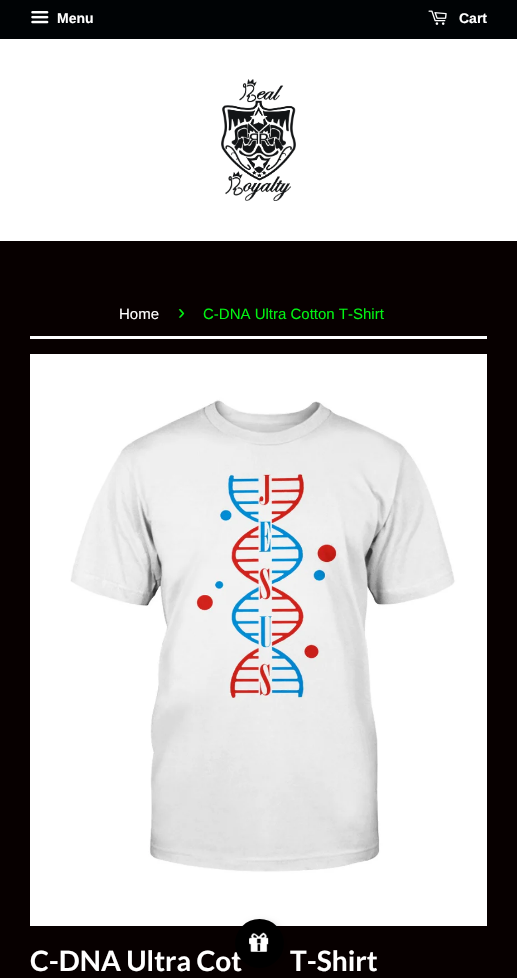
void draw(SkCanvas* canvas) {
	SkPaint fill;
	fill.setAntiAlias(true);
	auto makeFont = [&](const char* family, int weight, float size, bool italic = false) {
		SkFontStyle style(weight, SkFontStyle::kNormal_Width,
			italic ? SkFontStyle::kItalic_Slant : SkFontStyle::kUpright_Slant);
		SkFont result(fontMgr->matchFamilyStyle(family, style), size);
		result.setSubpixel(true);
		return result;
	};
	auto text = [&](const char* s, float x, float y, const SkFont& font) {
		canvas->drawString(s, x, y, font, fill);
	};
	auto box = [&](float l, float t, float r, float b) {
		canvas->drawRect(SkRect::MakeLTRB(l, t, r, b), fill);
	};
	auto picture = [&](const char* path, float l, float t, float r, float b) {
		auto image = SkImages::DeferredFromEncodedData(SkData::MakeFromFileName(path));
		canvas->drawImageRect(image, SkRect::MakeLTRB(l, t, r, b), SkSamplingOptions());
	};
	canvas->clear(0xFF070000);
	fill.setColor(0xFF000305);
	box(0, 0, 517, 39);
	picture("image0.png", 31, 11, 49, 24);
	picture("image1.png", 428, 10, 447, 25);
	fill.setColor(0xFFFFFFFF);
	box(0, 39, 517, 241);
	picture("image2.png", 221, 79, 296, 201);
	fill.setColor(0xFFFCFDFE);
	box(30, 336, 487, 339);
	picture("image3.png", 30, 354, 487, 926);
	fill.setColor(0x40000000);
	fill.setMaskFilter(SkMaskFilter::MakeBlur(kNormal_SkBlurStyle, 3));
	canvas->drawRoundRect(SkRect::MakeLTRB(237, 922, 286, 971), 24.5f, 24.5f, fill);
	fill.setMaskFilter(nullptr);
	auto font1 = makeFont("Liberation Sans", 700, 14);
	fill.setColor(0xFFFFFFFF);
	text("Menu", 57, 23, font1);
	text("Cart", 459, 23, font1);
	auto font2 = makeFont("Liberation Sans", 400, 15);
	text("Home", 119, 319, font2);
	auto font3 = makeFont("Liberation Sans", 400, 21);
	fill.setColor(0xFF02F213);
	text("›", 178, 319, font3);
	text("C-DNA Ultra Cotton T-Shirt", 203, 319, font2);
	auto font4 = makeFont("Lato", 700, 28);
	fill.setColor(0xFFFFFFFF);
	text("C-DNA Ultra Cot", 30, 971, font4);
	text("T-Shirt", 290, 971, font4);
	fill.setColor(0xFF000000);
	canvas->drawCircle(259.5f, 943.5f, 24.5f, fill);
	picture("image4.png", 249, 932, 269, 952);
}
